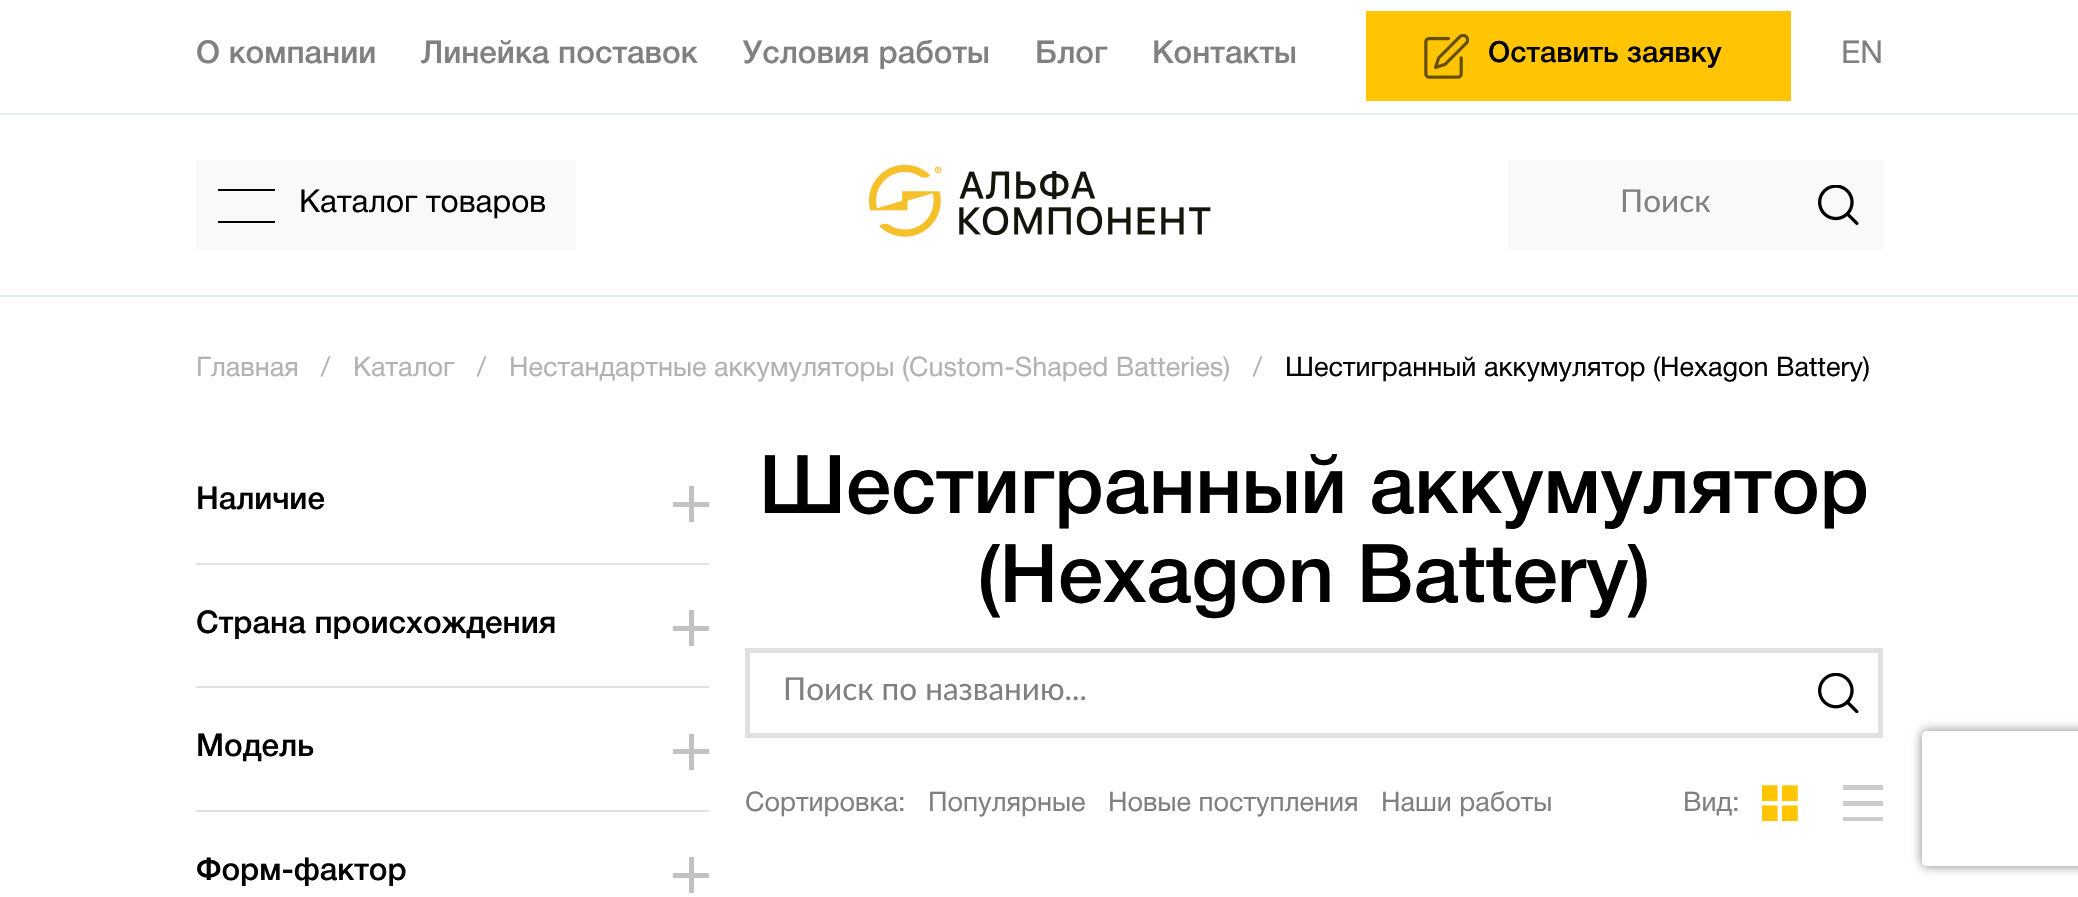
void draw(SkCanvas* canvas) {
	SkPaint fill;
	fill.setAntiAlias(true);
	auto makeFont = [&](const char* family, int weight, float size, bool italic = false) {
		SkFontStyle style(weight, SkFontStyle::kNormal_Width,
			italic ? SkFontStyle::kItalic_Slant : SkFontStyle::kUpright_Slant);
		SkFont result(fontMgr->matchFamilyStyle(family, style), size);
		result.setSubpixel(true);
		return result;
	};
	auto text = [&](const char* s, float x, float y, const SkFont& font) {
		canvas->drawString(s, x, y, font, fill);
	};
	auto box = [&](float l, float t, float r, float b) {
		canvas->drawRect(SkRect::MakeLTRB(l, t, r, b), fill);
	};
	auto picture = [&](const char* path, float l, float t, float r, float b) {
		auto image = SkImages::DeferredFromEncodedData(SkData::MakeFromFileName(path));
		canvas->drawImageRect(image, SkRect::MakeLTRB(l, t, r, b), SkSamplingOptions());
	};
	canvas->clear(0xFFFFFFFF);
	fill.setColor(0xFFE2F1EC);
	box(0, 113, 2078, 115);
	fill.setColor(0xFFFFC502);
	box(1366, 11, 1791, 101);
	picture("image0.png", 1424, 34, 1469, 79);
	fill.setColor(0xFFE2F1EC);
	box(0, 295, 2078, 297);
	fill.setColor(0xFFF9F9F9);
	box(196, 160, 576, 250);
	fill.setColor(0xFF000000);
	box(218, 189, 275, 191);
	box(218, 221, 275, 223);
	picture("image1.png", 869, 164, 1211, 237);
	fill.setColor(0xFFF9F9F9);
	box(1508, 160, 1883, 250);
	picture("image2.png", 1818, 185, 1859, 225);
	fill.setColor(0xFFE2E2E2);
	box(196, 563, 709, 565);
	fill.setColor(0xFFC2C2C2);
	box(673, 502, 709, 507);
	fill.setColor(0xFFC1C1C1);
	box(689, 486, 694, 522);
	fill.setColor(0xFFE2E2E2);
	box(196, 686, 709, 688);
	fill.setColor(0xFFC2C2C2);
	box(673, 626, 709, 631);
	fill.setColor(0xFFC1C1C1);
	box(689, 610, 694, 646);
	fill.setColor(0xFFE2E2E2);
	box(196, 810, 709, 812);
	fill.setColor(0xFFC2C2C2);
	box(673, 749, 709, 754);
	fill.setColor(0xFFC1C1C1);
	box(689, 734, 694, 770);
	fill.setColor(0xFFC2C2C2);
	box(673, 873, 709, 878);
	fill.setColor(0xFFC1C1C1);
	box(689, 857, 694, 893);
	fill.setStyle(SkPaint::kStroke_Style);
	fill.setStrokeWidth(5);
	fill.setColor(0xFFE0E0E0);
	canvas->drawRect(SkRect::MakeLTRB(747.5f, 650.5f, 1880.5f, 735.5f), fill);
	picture("image3.png", 1818, 673, 1859, 713);
	picture("image4.png", 1762, 785, 1798, 821);
	fill.setStyle(SkPaint::kFill_Style);
	fill.setColor(0xFFCCCCCC);
	box(1843, 801, 1883, 806);
	box(1843, 817, 1883, 821);
	box(1843, 785, 1883, 790);
	canvas->save();
	canvas->clipPath(SkPathBuilder(SkPathFillType::kEvenOdd).moveTo(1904, 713).lineTo(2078, 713).lineTo(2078, 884).lineTo(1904, 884).close().moveTo(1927, 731).lineTo(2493, 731).cubicTo(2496, 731, 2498, 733, 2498, 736).lineTo(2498, 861).cubicTo(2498, 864, 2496, 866, 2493, 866).lineTo(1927, 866).cubicTo(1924, 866, 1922, 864, 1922, 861).lineTo(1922, 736).cubicTo(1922, 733, 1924, 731, 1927, 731).close().detach(), true);
	fill.setColor(0xFF808080);
	fill.setMaskFilter(SkMaskFilter::MakeBlur(kNormal_SkBlurStyle, 5.5f));
	canvas->drawRoundRect(SkRect::MakeLTRB(1922, 731, 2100, 866), 5, 5, fill);
	fill.setMaskFilter(nullptr);
	canvas->restore();
	auto font1 = makeFont("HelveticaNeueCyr", 500, 31.5f);
	text("О компании", 196, 63, font1);
	text("Линейка поставок", 421, 63, font1);
	text("Условия работы", 743, 63, font1);
	text("Блог", 1035, 63, font1);
	text("Контакты", 1152, 63, font1);
	auto font2 = makeFont("HelveticaNeueCyr", 500, 29.25f);
	fill.setColor(0xFF000000);
	text("Оставить заявку", 1488, 62, font2);
	auto font3 = makeFont("HelveticaNeueCyr", 400, 31.5f);
	fill.setColor(0xFF808080);
	text("EN", 1841, 63, font3);
	fill.setColor(0xFF000000);
	text("Каталог товаров", 299, 212, font3);
	auto font4 = makeFont("Lato", 400, 31.5f);
	fill.setColor(0xFF808080);
	text("Поиск", 1620, 212, font4);
	auto font5 = makeFont("HelveticaNeueCyr", 400, 27);
	fill.setColor(0xFFB2B2B2);
	text("Главная", 196, 376, font5);
	text("/", 321, 376, font5);
	text("Каталог", 353, 376, font5);
	text("/", 477, 376, font5);
	text("Нестандартные аккумуляторы (Custom-Shaped Batteries)", 509, 376, font5);
	text("/", 1253, 376, font5);
	fill.setColor(0xFF000000);
	text("Шестигранный аккумулятор (Hexagon Battery)", 1285, 376, font5);
	text("Наличие", 196, 509, font1);
	text("Страна происхождения", 196, 633, font1);
	text("Модель", 196, 756, font1);
	text("Форм-фактор", 196, 880, font1);
	auto font6 = makeFont("HelveticaNeueCyr", 500, 81);
	text("Шестигранный аккумулятор", 759, 513, font6);
	text("(Hexagon Battery)", 977, 602, font6);
	fill.setColor(0xFF808080);
	text("Поиск по названию...", 783, 700, font4);
	text("Сортировка:", 745, 811, font5);
	text("Популярные", 928, 811, font5);
	text("Новые поступления", 1108, 811, font5);
	text("Наши работы", 1381, 811, font5);
	text("Вид:", 1683, 811, font5);
}
